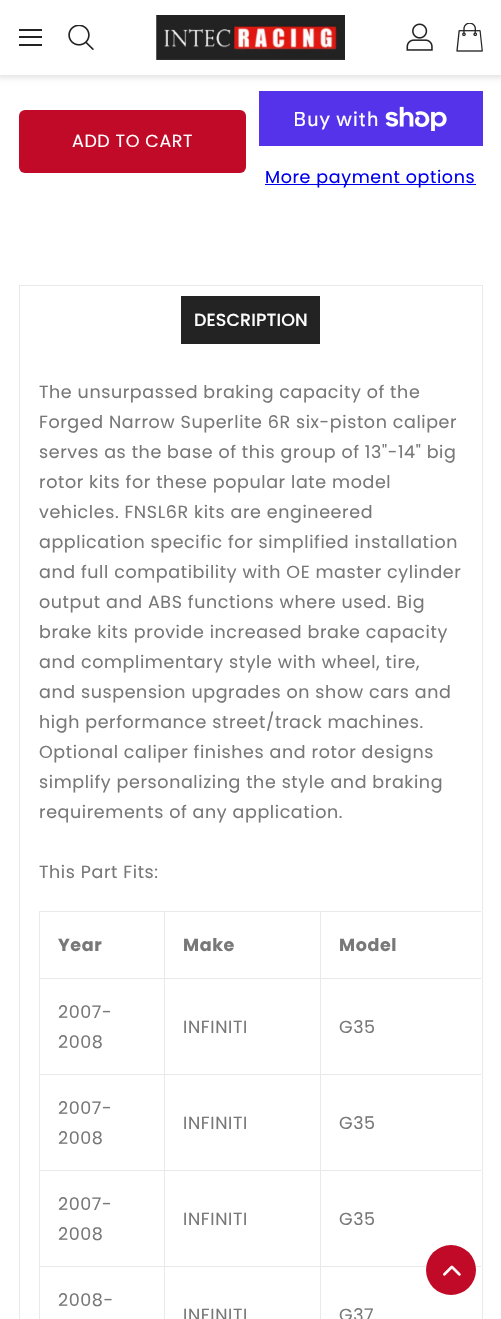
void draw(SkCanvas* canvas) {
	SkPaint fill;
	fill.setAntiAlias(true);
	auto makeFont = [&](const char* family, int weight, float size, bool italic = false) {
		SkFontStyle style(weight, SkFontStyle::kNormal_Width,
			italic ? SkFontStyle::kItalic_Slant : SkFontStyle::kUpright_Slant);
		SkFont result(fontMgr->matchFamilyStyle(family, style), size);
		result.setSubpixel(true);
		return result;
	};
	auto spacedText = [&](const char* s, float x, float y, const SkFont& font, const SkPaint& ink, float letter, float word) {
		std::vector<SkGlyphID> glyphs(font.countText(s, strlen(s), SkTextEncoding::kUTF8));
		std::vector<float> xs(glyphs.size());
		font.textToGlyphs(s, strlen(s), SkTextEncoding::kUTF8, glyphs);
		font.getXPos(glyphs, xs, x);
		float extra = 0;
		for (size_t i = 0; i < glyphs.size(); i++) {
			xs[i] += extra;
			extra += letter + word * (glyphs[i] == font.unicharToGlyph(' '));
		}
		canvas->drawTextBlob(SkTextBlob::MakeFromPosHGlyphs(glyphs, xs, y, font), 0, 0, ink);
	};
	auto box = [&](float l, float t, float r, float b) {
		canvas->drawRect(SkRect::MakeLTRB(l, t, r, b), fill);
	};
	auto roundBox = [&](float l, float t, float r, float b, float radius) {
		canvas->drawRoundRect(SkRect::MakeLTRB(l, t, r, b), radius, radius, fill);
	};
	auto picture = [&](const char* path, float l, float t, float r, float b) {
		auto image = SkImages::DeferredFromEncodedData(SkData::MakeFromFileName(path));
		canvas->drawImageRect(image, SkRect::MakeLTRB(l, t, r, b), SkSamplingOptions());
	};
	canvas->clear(0xFFFFFFFF);
	fill.setColor(0x1A000000);
	fill.setMaskFilter(SkMaskFilter::MakeBlur(kNormal_SkBlurStyle, 2.5f));
	canvas->drawRect(SkRect::MakeLTRB(-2, -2, 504, 78), fill);
	fill.setMaskFilter(nullptr);
	fill.setColor(0xFFFFFFFF);
	box(0, 0, 501, 75);
	fill.setColor(0xFF232323);
	box(19, 29, 42, 31);
	box(19, 36, 42, 38);
	box(19, 44, 42, 46);
	picture("image0.png", 68, 25, 94, 50);
	picture("image1.png", 156, 15, 345, 60);
	picture("image2.png", 406, 23, 433, 51);
	picture("image3.png", 456, 23, 483, 52);
	fill.setColor(0xFFC00A27);
	roundBox(19, 110, 246, 173, 6);
	fill.setColor(0xFF5433EB);
	box(259, 91, 483, 146);
	picture("image4.png", 385, 106, 447, 131);
	fill.setColor(0xFF0000EE);
	box(265, 184, 476, 185);
	fill.setStyle(SkPaint::kStroke_Style);
	fill.setStrokeWidth(1);
	fill.setColor(0xFFE9E9E9);
	canvas->drawRect(SkRect::MakeLTRB(19.5f, 285.5f, 482.5f, 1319.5f), fill);
	fill.setStyle(SkPaint::kFill_Style);
	fill.setColor(0xFF232323);
	box(181, 296, 320, 344);
	fill.setColor(0xFFE9E9E9);
	box(320, 911, 481, 912);
	box(320, 978, 481, 979);
	box(320, 1074, 481, 1075);
	box(320, 1170, 481, 1171);
	box(320, 1266, 481, 1267);
	box(320, 1266, 321, 1319);
	box(164, 1266, 321, 1267);
	box(320, 1170, 321, 1268);
	box(164, 1170, 321, 1171);
	box(320, 1074, 321, 1171);
	box(164, 1074, 321, 1075);
	box(320, 978, 321, 1075);
	box(164, 978, 321, 979);
	box(320, 911, 321, 979);
	box(164, 911, 321, 912);
	box(164, 1266, 165, 1319);
	box(39, 1266, 165, 1267);
	box(164, 1170, 165, 1268);
	box(39, 1170, 165, 1171);
	box(164, 1074, 165, 1171);
	box(39, 1074, 165, 1075);
	box(164, 978, 165, 1075);
	box(39, 978, 165, 979);
	box(164, 911, 165, 979);
	box(39, 911, 165, 912);
	box(39, 1266, 40, 1319);
	box(39, 1170, 40, 1268);
	box(39, 1074, 40, 1171);
	box(39, 978, 40, 1075);
	box(39, 911, 40, 979);
	fill.setColor(0xFFC00A27);
	canvas->drawCircle(451, 1270, 25, fill);
	picture("image5.png", 443, 1265, 461, 1276);
	auto font1 = makeFont("Poppins", 400, 17.5f);
	fill.setColor(0xFFFFFFFF);
	spacedText("ADD TO CART", 72, 147, font1, fill, 0.6f, 0);
	auto font2 = makeFont("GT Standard", 400, 20);
	spacedText("Buy with", 293, 126, font2, fill, 0.6f, 0);
	fill.setColor(0xFF0000EE);
	spacedText("More payment options", 265, 183, font1, fill, 0.6f, 0);
	auto font3 = makeFont("Poppins", 500, 17.5f);
	fill.setColor(0xFFFFFFFF);
	spacedText("DESCRIPTION", 194, 326, font3, fill, 0.1f, 0);
	fill.setColor(0xFF787878);
	spacedText("The unsurpassed braking capacity of the", 39, 398, font1, fill, 0.6f, 0);
	spacedText("Forged Narrow Superlite 6R six-piston caliper", 39, 428, font1, fill, 0.6f, 0);
	spacedText("serves as the base of this group of 13\"-14\" big", 39, 458, font1, fill, 0.6f, 0);
	spacedText("rotor kits for these popular late model", 39, 488, font1, fill, 0.6f, 0);
	spacedText("vehicles. FNSL6R kits are engineered", 39, 518, font1, fill, 0.6f, 0);
	spacedText("application specific for simplified installation", 39, 548, font1, fill, 0.6f, 0);
	spacedText("and full compatibility with OE master cylinder", 39, 578, font1, fill, 0.6f, 0);
	spacedText("output and ABS functions where used. Big", 39, 608, font1, fill, 0.6f, 0);
	spacedText("brake kits provide increased brake capacity", 39, 638, font1, fill, 0.6f, 0);
	spacedText("and complimentary style with wheel, tire,", 39, 668, font1, fill, 0.6f, 0);
	spacedText("and suspension upgrades on show cars and", 39, 698, font1, fill, 0.6f, 0);
	spacedText("high performance street/track machines.", 39, 728, font1, fill, 0.6f, 0);
	spacedText("Optional caliper finishes and rotor designs", 39, 758, font1, fill, 0.6f, 0);
	spacedText("simplify personalizing the style and braking", 39, 788, font1, fill, 0.6f, 0);
	spacedText("requirements of any application.", 39, 818, font1, fill, 0.6f, 0);
	spacedText("This Part Fits:", 39, 878, font1, fill, 0.6f, 0);
	auto font4 = makeFont("Poppins", 700, 17.5f);
	spacedText("Year", 58, 951, font4, fill, 0.6f, 0);
	spacedText("Make", 183, 951, font4, fill, 0.6f, 0);
	spacedText("Model", 339, 951, font4, fill, 0.6f, 0);
	spacedText("2007-", 58, 1018, font1, fill, 0.6f, 0);
	spacedText("2008", 58, 1048, font1, fill, 0.6f, 0);
	spacedText("INFINITI", 183, 1033, font1, fill, 0.6f, 0);
	spacedText("G35", 339, 1033, font1, fill, 0.6f, 0);
	spacedText("2007-", 58, 1114, font1, fill, 0.6f, 0);
	spacedText("2008", 58, 1144, font1, fill, 0.6f, 0);
	spacedText("INFINITI", 183, 1129, font1, fill, 0.6f, 0);
	spacedText("G35", 339, 1129, font1, fill, 0.6f, 0);
	spacedText("2007-", 58, 1210, font1, fill, 0.6f, 0);
	spacedText("2008", 58, 1240, font1, fill, 0.6f, 0);
	spacedText("INFINITI", 183, 1225, font1, fill, 0.6f, 0);
	spacedText("G35", 339, 1225, font1, fill, 0.6f, 0);
	spacedText("2008-", 58, 1306, font1, fill, 0.6f, 0);
	spacedText("INFINITI", 183, 1321, font1, fill, 0.6f, 0);
	spacedText("G37", 339, 1321, font1, fill, 0.6f, 0);
}
